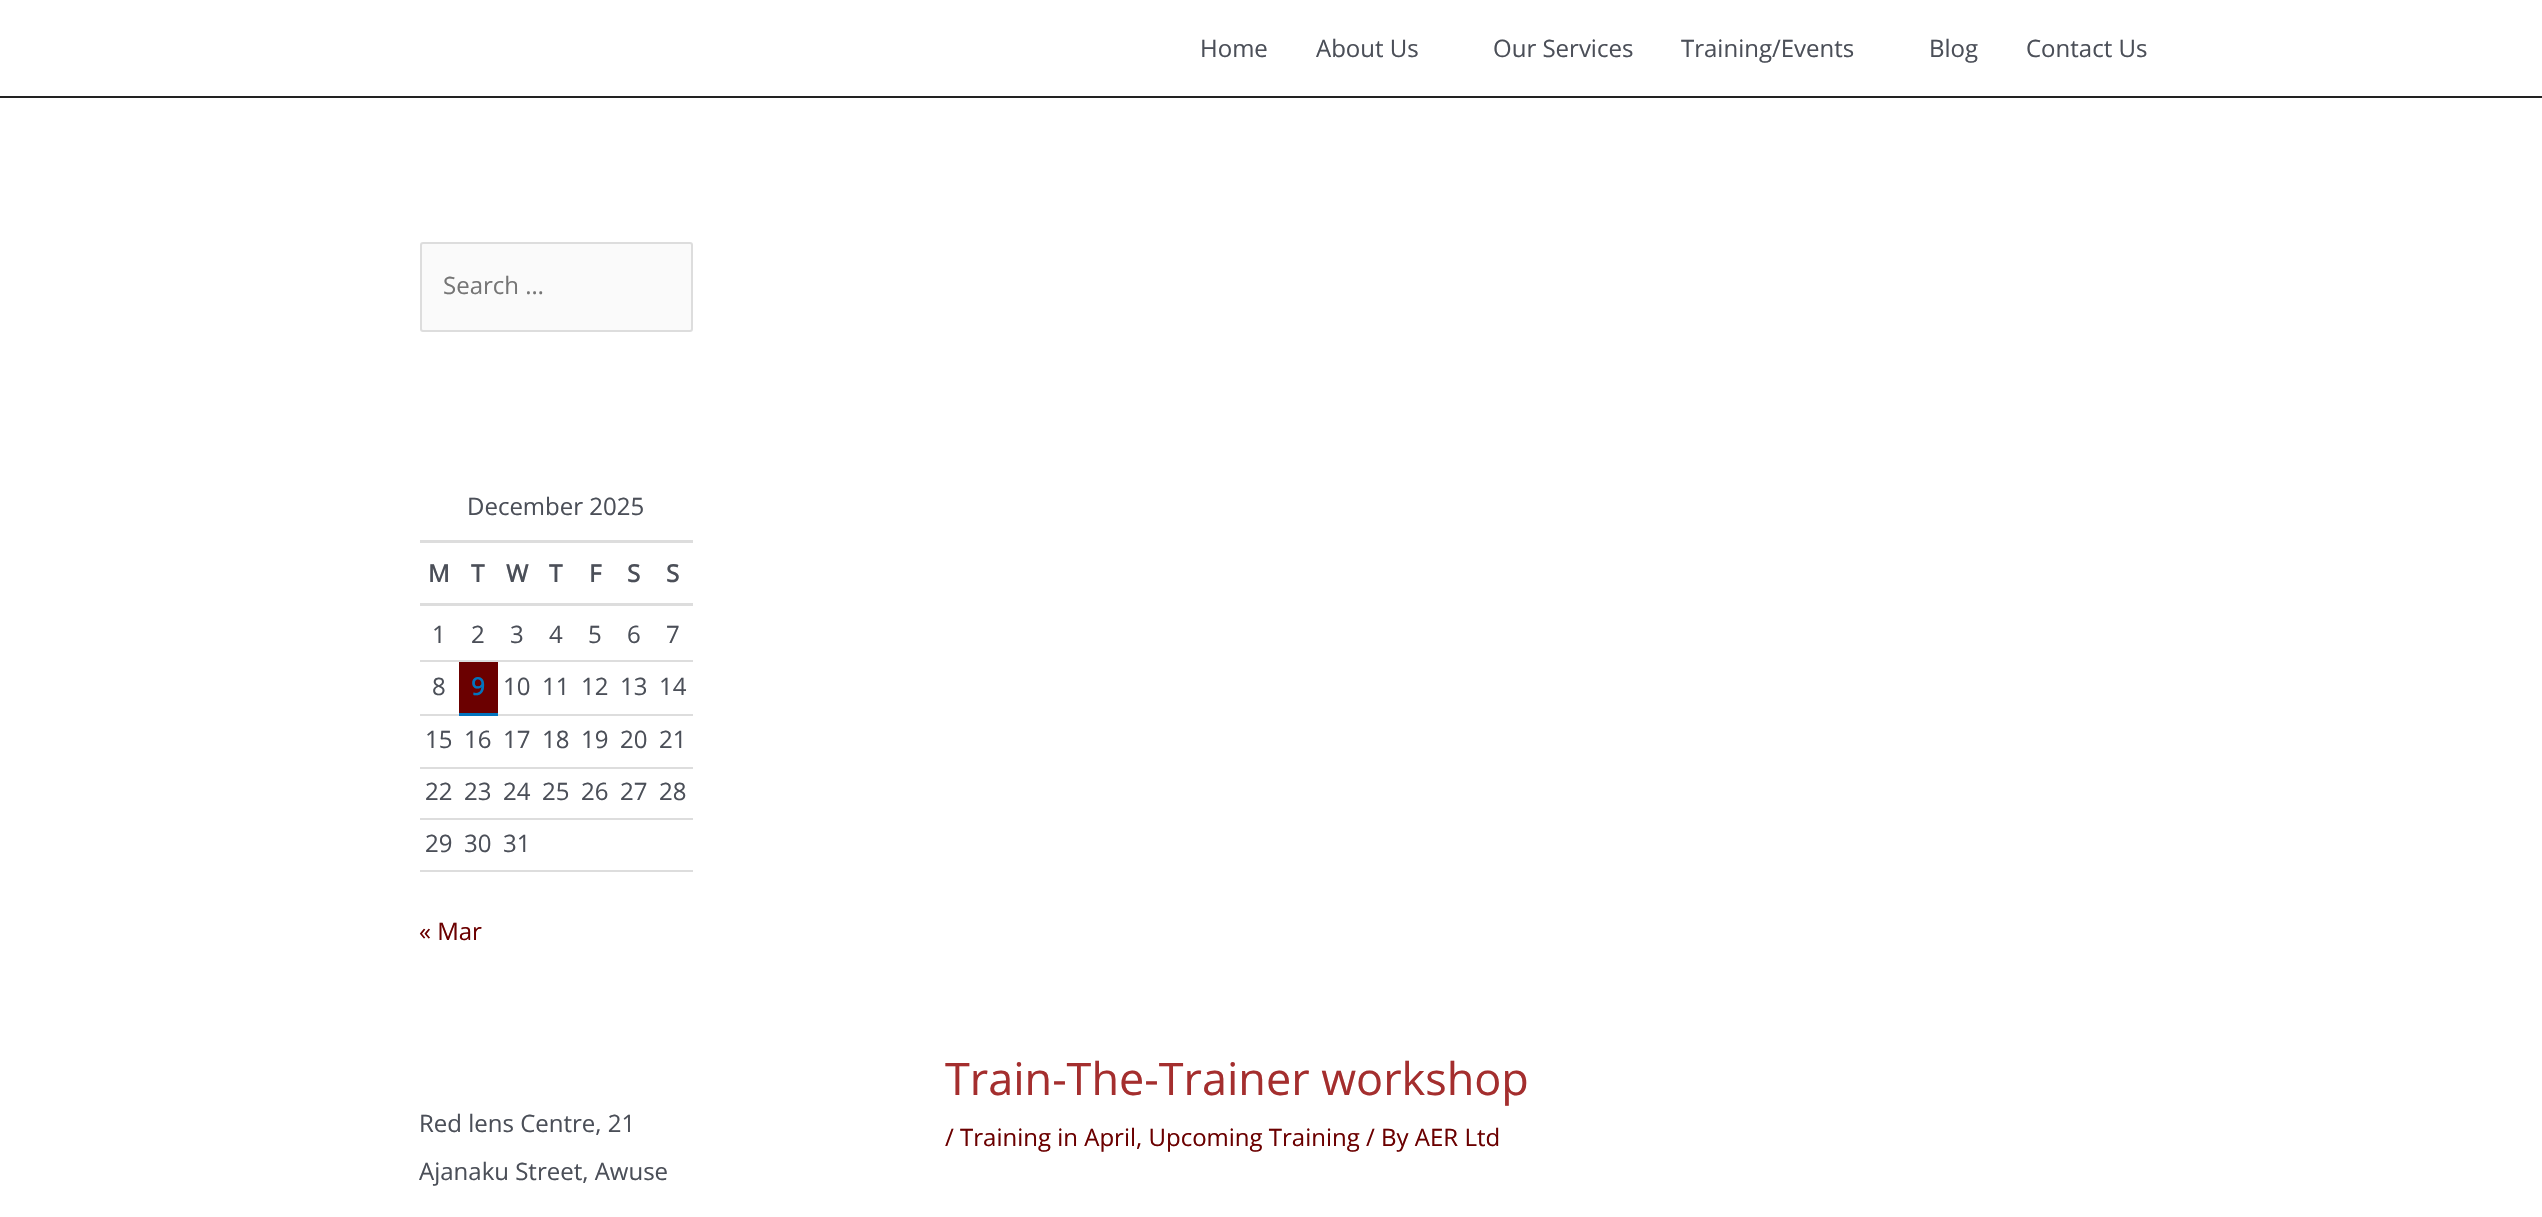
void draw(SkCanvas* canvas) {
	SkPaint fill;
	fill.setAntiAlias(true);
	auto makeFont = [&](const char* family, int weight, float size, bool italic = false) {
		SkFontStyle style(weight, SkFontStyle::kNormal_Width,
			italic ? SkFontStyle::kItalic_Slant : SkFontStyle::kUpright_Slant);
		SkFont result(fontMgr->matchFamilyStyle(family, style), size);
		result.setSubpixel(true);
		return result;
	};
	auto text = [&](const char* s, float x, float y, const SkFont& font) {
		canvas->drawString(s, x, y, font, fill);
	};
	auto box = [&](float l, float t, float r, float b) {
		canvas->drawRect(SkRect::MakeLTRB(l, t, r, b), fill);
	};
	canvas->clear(0xFFFFFFFF);
	fill.setColor(0xFF222222);
	box(0, 96, 2542, 98);
	fill.setColor(0xFFFAFAFA);
	canvas->drawRoundRect(SkRect::MakeLTRB(421, 243, 692, 331), 2, 2, fill);
	fill.setStyle(SkPaint::kStroke_Style);
	fill.setStrokeWidth(2);
	fill.setColor(0xFFDDDDDD);
	canvas->drawRoundRect(SkRect::MakeLTRB(421, 243, 692, 331), 2, 2, fill);
	fill.setStyle(SkPaint::kFill_Style);
	box(420, 540, 693, 543);
	box(420, 603, 693, 606);
	box(420, 660, 693, 662);
	box(420, 714, 459, 716);
	fill.setColor(0xFF6B0000);
	box(459, 662, 498, 713);
	fill.setColor(0xFF0274BE);
	box(459, 713, 498, 716);
	fill.setColor(0xFFDDDDDD);
	box(498, 714, 693, 716);
	box(420, 767, 693, 769);
	box(420, 818, 693, 820);
	box(420, 870, 693, 872);
	auto font1 = makeFont("Open Sans", 400, 24);
	fill.setColor(0xFF4B4F58);
	text("Home", 1200, 57, font1);
	text("About Us", 1316, 57, font1);
	text("Our Services", 1493, 57, font1);
	text("Training/Events", 1681, 57, font1);
	text("Blog", 1929, 57, font1);
	text("Contact Us", 2026, 57, font1);
	fill.setColor(0xFF757575);
	text("Search …", 443, 294, font1);
	fill.setColor(0xFF4B4F58);
	text("December 2025", 467, 515, font1);
	auto font2 = makeFont("Open Sans", 700, 24);
	text("M", 428, 582, font2);
	text("T", 471, 582, font2);
	text("W", 506, 582, font2);
	text("T", 549, 582, font2);
	text("F", 589, 582, font2);
	text("S", 627, 582, font2);
	text("S", 666, 582, font2);
	text("1", 432, 643, font1);
	text("2", 471, 643, font1);
	text("3", 510, 643, font1);
	text("4", 549, 643, font1);
	text("5", 588, 643, font1);
	text("6", 627, 643, font1);
	text("7", 666, 643, font1);
	text("8", 432, 695, font1);
	fill.setColor(0xFF0274BE);
	text("9", 471, 695, font2);
	fill.setColor(0xFF4B4F58);
	text("10", 503, 695, font1);
	text("11", 542, 695, font1);
	text("12", 581, 695, font1);
	text("13", 620, 695, font1);
	text("14", 659, 695, font1);
	text("15", 425, 748, font1);
	text("16", 464, 748, font1);
	text("17", 503, 748, font1);
	text("18", 542, 748, font1);
	text("19", 581, 748, font1);
	text("20", 620, 748, font1);
	text("21", 659, 748, font1);
	text("22", 425, 800, font1);
	text("23", 464, 800, font1);
	text("24", 503, 800, font1);
	text("25", 542, 800, font1);
	text("26", 581, 800, font1);
	text("27", 620, 800, font1);
	text("28", 659, 800, font1);
	text("29", 425, 852, font1);
	text("30", 464, 852, font1);
	text("31", 503, 852, font1);
	fill.setColor(0xFF6B0000);
	text("« Mar", 419, 940, font1);
	fill.setColor(0xFF4B4F58);
	text("Red lens Centre, 21", 419, 1132, font1);
	text("Ajanaku Street, Awuse", 419, 1180, font1);
	auto font3 = makeFont("Open Sans", 400, 45);
	fill.setColor(0xFFA42E2E);
	text("Train-The-Trainer workshop", 945, 1095, font3);
	fill.setColor(0xFF6B0000);
	text("/ Training in April, Upcoming Training / By AER Ltd", 945, 1146, font1);
}
